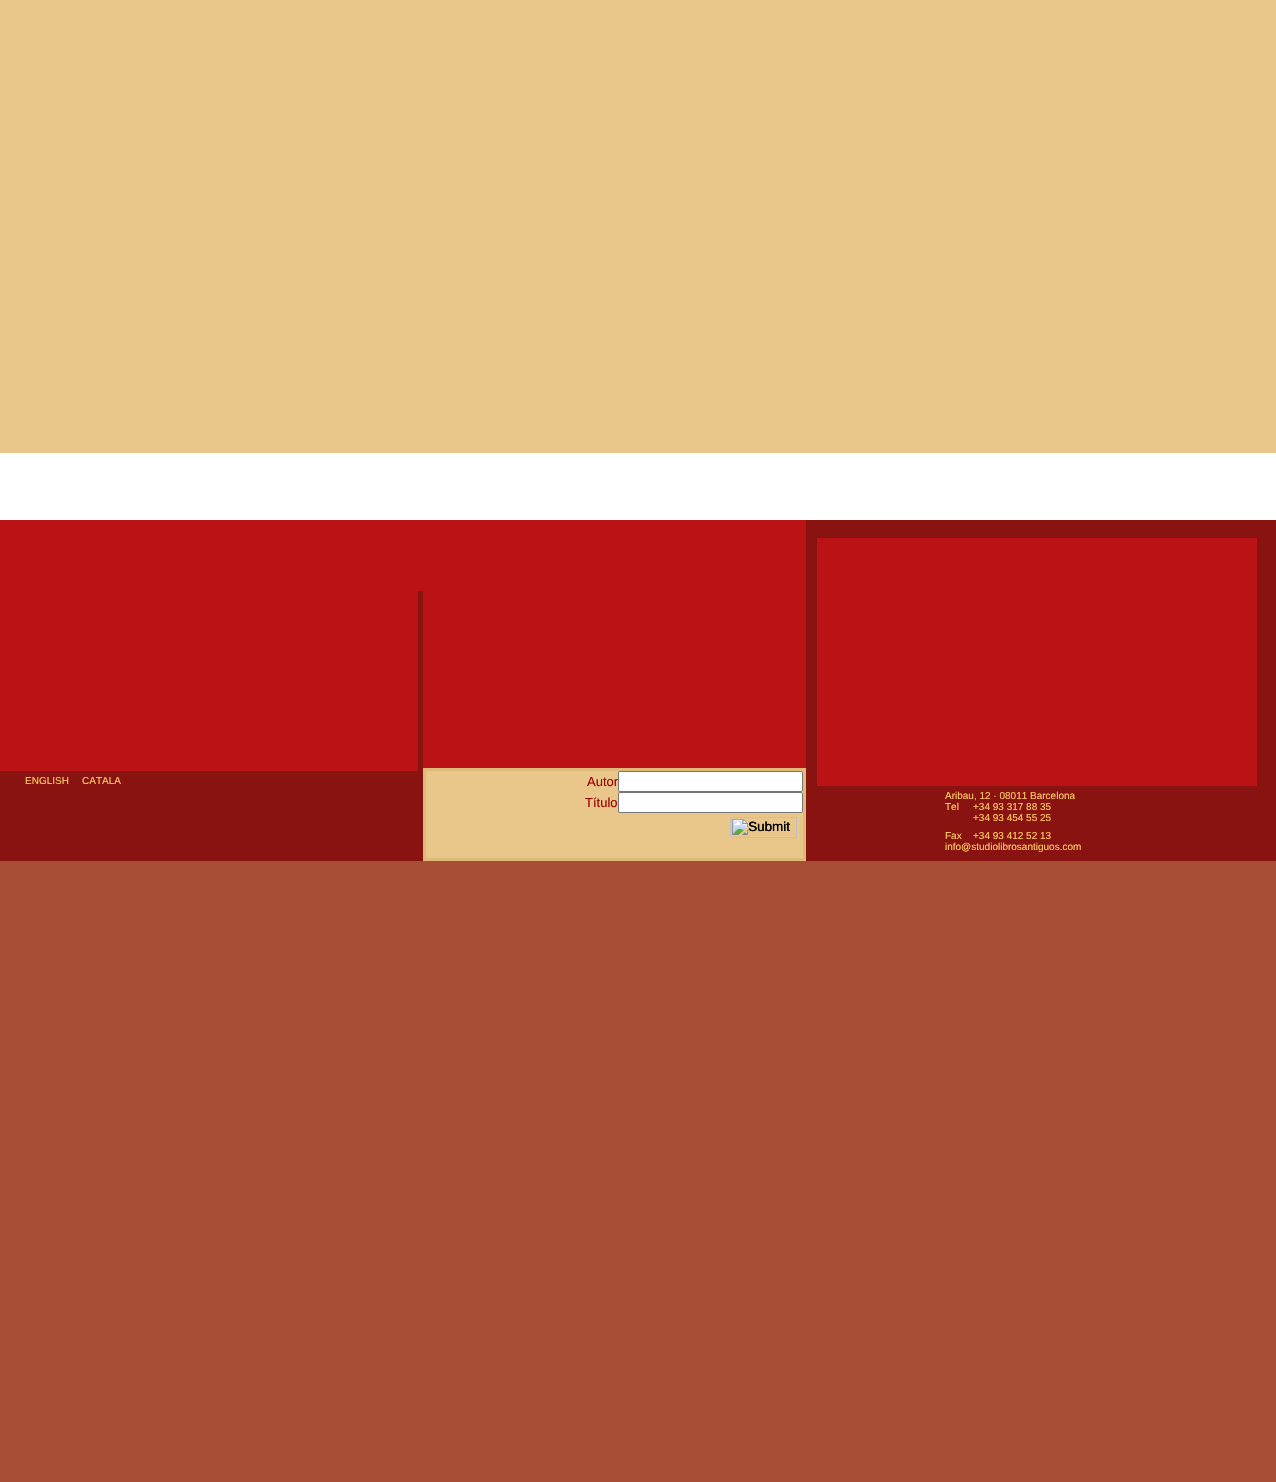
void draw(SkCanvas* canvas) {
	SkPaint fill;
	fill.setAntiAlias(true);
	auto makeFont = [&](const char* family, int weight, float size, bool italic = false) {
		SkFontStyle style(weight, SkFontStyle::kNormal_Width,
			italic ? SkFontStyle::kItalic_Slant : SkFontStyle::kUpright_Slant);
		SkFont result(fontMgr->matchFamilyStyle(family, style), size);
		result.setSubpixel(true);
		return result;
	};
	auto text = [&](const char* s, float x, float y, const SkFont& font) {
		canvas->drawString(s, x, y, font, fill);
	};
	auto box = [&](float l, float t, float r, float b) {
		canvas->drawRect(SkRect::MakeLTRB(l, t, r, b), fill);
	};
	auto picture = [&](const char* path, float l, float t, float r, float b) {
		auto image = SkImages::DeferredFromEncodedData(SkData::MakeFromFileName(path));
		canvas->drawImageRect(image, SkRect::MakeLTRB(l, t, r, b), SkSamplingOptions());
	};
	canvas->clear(0xFFFFFFFF);
	fill.setColor(0xFFE9C689);
	box(0, 0, 1276, 453);
	fill.setColor(0xFFBA1215);
	box(0, 520, 1257, 786);
	fill.setColor(0xFF891310);
	box(418, 591, 423, 771);
	box(0, 771, 423, 861);
	box(806, 520, 1276, 538);
	box(806, 538, 817, 786);
	box(1257, 538, 1276, 786);
	box(806, 786, 1276, 861);
	fill.setColor(0xFFDFB978);
	box(423, 768, 806, 861);
	fill.setColor(0xFFE9C689);
	box(426, 771, 803, 858);
	fill.setColor(0xFFFFFFFF);
	canvas->drawRoundRect(SkRect::MakeLTRB(618.5f, 771.5f, 802.5f, 791.5f), 1.5f, 1.5f, fill);
	fill.setStyle(SkPaint::kStroke_Style);
	fill.setStrokeWidth(1);
	fill.setColor(0xFF767676);
	canvas->drawRoundRect(SkRect::MakeLTRB(618.5f, 771.5f, 802.5f, 791.5f), 1.5f, 1.5f, fill);
	fill.setStyle(SkPaint::kFill_Style);
	fill.setColor(0xFFFFFFFF);
	canvas->drawRoundRect(SkRect::MakeLTRB(618.5f, 792.5f, 802.5f, 812.5f), 1.5f, 1.5f, fill);
	fill.setStyle(SkPaint::kStroke_Style);
	fill.setColor(0xFF767676);
	canvas->drawRoundRect(SkRect::MakeLTRB(618.5f, 792.5f, 802.5f, 812.5f), 1.5f, 1.5f, fill);
	picture("image0.png", 730, 817, 797, 838);
	fill.setStyle(SkPaint::kFill_Style);
	fill.setColor(0xFFA84E35);
	box(0, 861, 1276, 1482);
	auto font1 = makeFont("Liberation Sans", 400, 10);
	fill.setColor(0xFFFFCC66);
	text("ENGLISH", 25, 784, font1);
	text("CATALA", 82, 784, font1);
	text("Aribau, 12 · 08011 Barcelona", 945, 799, font1);
	text("Tel", 945, 810, font1);
	text("+34 93 317 88 35", 973, 810, font1);
	text("+34 93 454 55 25", 973, 821, font1);
	text("Fax", 945, 839, font1);
	text("+34 93 412 52 13", 973, 839, font1);
	text("info@studiolibrosantiguos.com", 945, 850, font1);
	auto font2 = makeFont("Liberation Sans", 400, 13);
	fill.setColor(0xFF990000);
	text("Autor", 587, 786, font2);
	text("Título", 585, 807, font2);
	auto font3 = makeFont("Liberation Sans", 400, 13.5f);
	fill.setColor(0xFF000000);
	text("Submit", 748, 831, font3);
}
